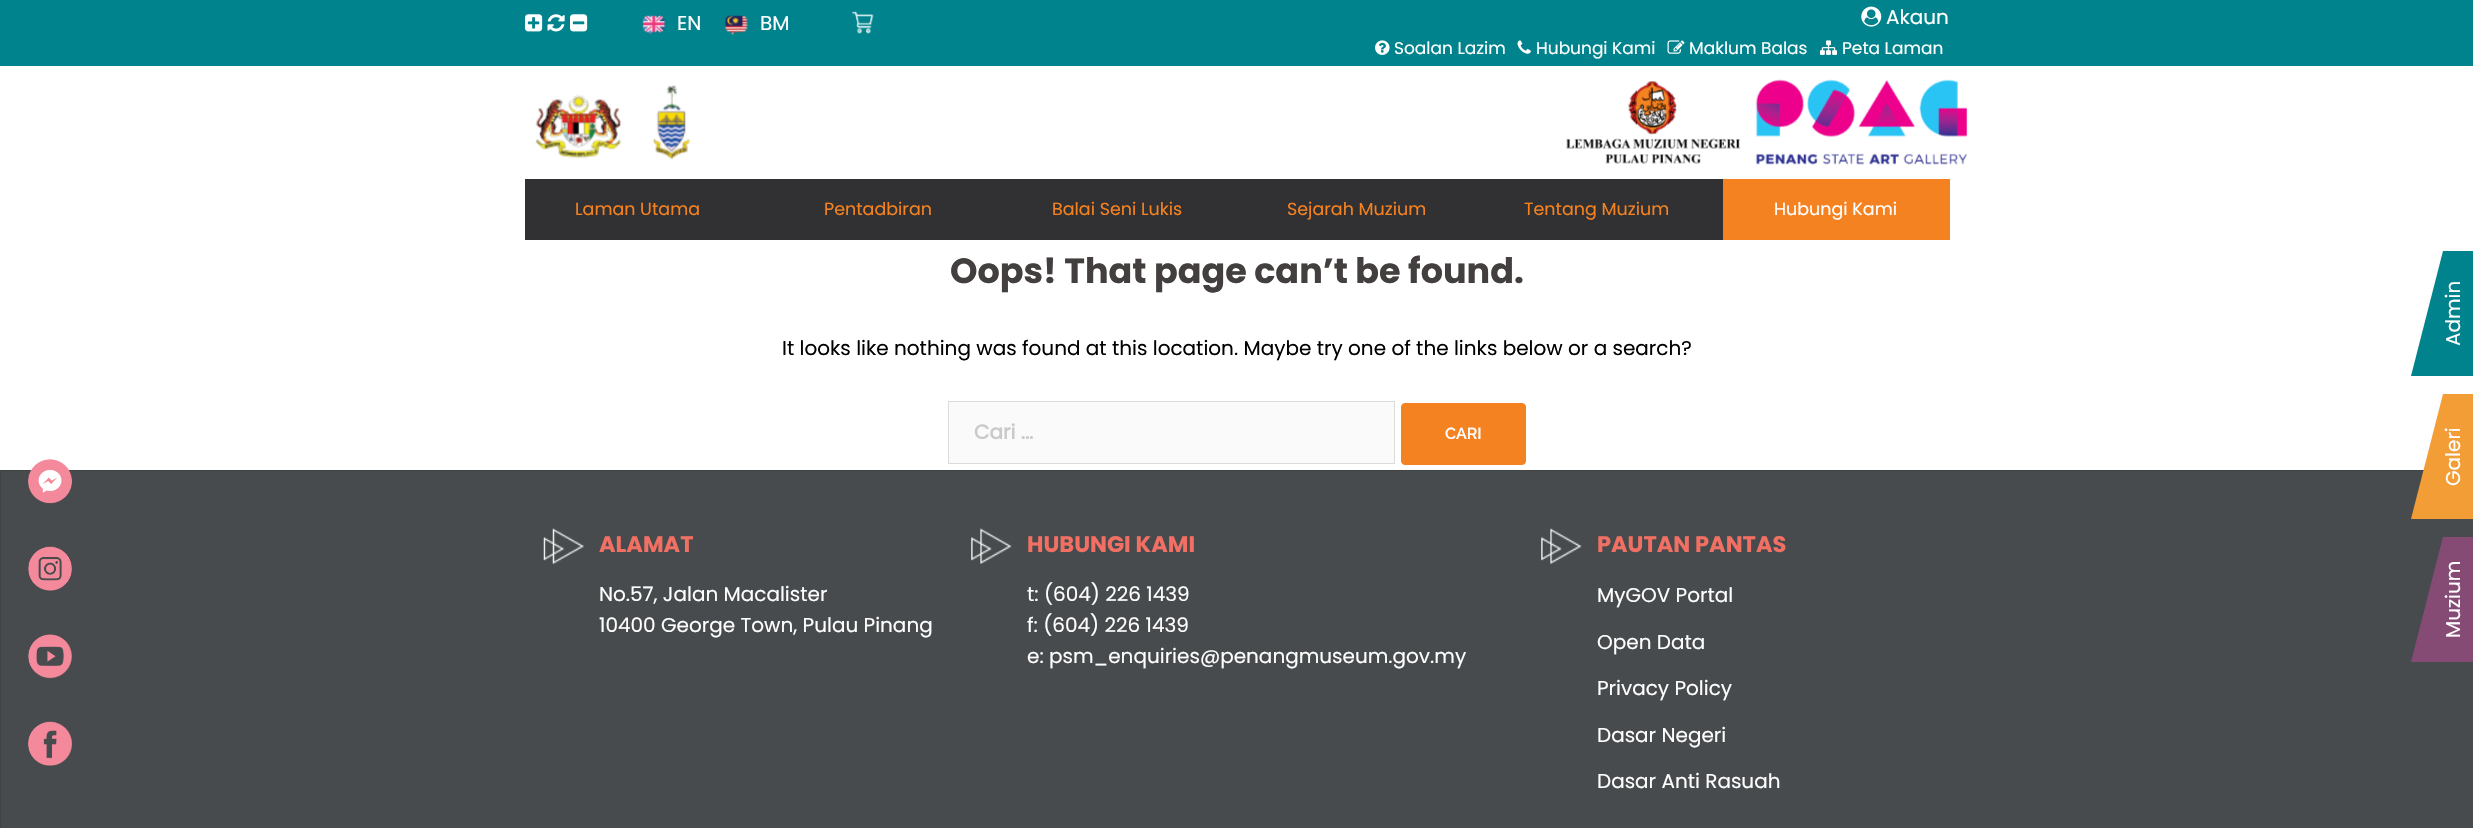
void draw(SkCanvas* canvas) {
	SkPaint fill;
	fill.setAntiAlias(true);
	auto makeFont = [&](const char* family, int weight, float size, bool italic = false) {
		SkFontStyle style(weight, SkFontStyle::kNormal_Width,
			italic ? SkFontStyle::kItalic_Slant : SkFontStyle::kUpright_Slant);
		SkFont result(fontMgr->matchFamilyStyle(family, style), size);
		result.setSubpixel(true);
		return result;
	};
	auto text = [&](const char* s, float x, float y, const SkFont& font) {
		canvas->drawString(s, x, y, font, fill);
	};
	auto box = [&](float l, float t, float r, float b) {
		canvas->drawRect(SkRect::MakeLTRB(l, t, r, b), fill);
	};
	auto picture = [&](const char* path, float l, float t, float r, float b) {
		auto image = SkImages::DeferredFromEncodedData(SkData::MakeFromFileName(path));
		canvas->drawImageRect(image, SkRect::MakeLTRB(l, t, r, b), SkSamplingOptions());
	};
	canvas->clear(0xFFFFFFFF);
	fill.setColor(0xFF00838C);
	box(0, 0, 2473, 66);
	picture("image0.png", 525, 14, 543, 32);
	picture("image1.png", 547, 14, 565, 32);
	picture("image2.png", 570, 14, 588, 32);
	picture("image3.png", 642, 15, 666, 35);
	picture("image4.png", 724, 15, 748, 35);
	picture("image5.png", 852, 11, 874, 34);
	picture("image6.png", 1861, 6, 1882, 27);
	picture("image7.png", 1375, 40, 1390, 55);
	picture("image8.png", 1517, 40, 1531, 54);
	picture("image9.png", 1667, 40, 1685, 54);
	picture("image10.png", 1820, 40, 1837, 55);
	picture("image11.png", 535, 85, 691, 160);
	picture("image12.png", 1566, 80, 1741, 164);
	picture("image13.png", 1755, 79, 1968, 165);
	fill.setColor(0xFF313032);
	box(525, 179, 1723, 240);
	fill.setColor(0xFFF58220);
	box(1723, 179, 1950, 240);
	fill.setColor(0xFF474B4D);
	canvas->drawRect(SkRect::MakeLTRB(0.5f, 470.5f, 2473.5f, 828.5f), fill);
	fill.setStyle(SkPaint::kStroke_Style);
	fill.setStrokeWidth(1);
	fill.setColor(0xFF404445);
	canvas->drawRect(SkRect::MakeLTRB(0.5f, 470.5f, 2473.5f, 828.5f), fill);
	picture("image14.png", 28, 459, 72, 504);
	picture("image15.png", 28, 546, 72, 591);
	picture("image16.png", 28, 634, 72, 679);
	picture("image17.png", 28, 721, 72, 766);
	fill.setStyle(SkPaint::kFill_Style);
	fill.setColor(0xFFFAFAFA);
	canvas->drawRect(SkRect::MakeLTRB(948.5f, 401.5f, 1394.5f, 463.5f), fill);
	fill.setStyle(SkPaint::kStroke_Style);
	fill.setColor(0xFFDBDBDB);
	canvas->drawRect(SkRect::MakeLTRB(948.5f, 401.5f, 1394.5f, 463.5f), fill);
	fill.setStyle(SkPaint::kFill_Style);
	fill.setColor(0xFFF58220);
	canvas->drawRoundRect(SkRect::MakeLTRB(1401.5f, 403.5f, 1525.5f, 464.5f), 3.5f, 3.5f, fill);
	fill.setStyle(SkPaint::kStroke_Style);
	canvas->drawRoundRect(SkRect::MakeLTRB(1401.5f, 403.5f, 1525.5f, 464.5f), 3.5f, 3.5f, fill);
	fill.setStyle(SkPaint::kFill_Style);
	fill.setColor(0xFF00838C);
	canvas->drawPath(SkPathBuilder().moveTo(2411, 376).lineTo(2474, 376).lineTo(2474, 251).lineTo(2443, 251).close().detach(), fill);
	fill.setColor(0xFFF29D36);
	canvas->drawPath(SkPathBuilder().moveTo(2411, 519).lineTo(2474, 519).lineTo(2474, 394).lineTo(2443, 394).close().detach(), fill);
	fill.setColor(0xFF854B75);
	canvas->drawPath(SkPathBuilder().moveTo(2411, 662).lineTo(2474, 662).lineTo(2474, 537).lineTo(2443, 537).close().detach(), fill);
	picture("image18.png", 543, 528, 584, 564);
	picture("image19.png", 971, 528, 1012, 564);
	picture("image19.png", 1541, 528, 1582, 564);
	auto font1 = makeFont("Poppins", 400, 20);
	fill.setColor(0xFFFFFFFF);
	text("EN", 677, 30, font1);
	text("BM", 760, 30, font1);
	text("Akaun", 1886, 24, font1);
	auto font2 = makeFont("Poppins", 400, 17);
	text("Soalan Lazim", 1394, 54, font2);
	text("Hubungi Kami", 1536, 54, font2);
	text("Maklum Balas", 1689, 54, font2);
	text("Peta Laman", 1842, 54, font2);
	auto font3 = makeFont("Poppins", 400, 17.5f);
	fill.setColor(0xFFF58220);
	text("Laman Utama", 575, 215, font3);
	text("Pentadbiran", 824, 215, font3);
	text("Balai Seni Lukis", 1052, 215, font3);
	text("Sejarah Muzium", 1287, 215, font3);
	text("Tentang Muzium", 1524, 215, font3);
	fill.setColor(0xFFFFFFFF);
	text("Hubungi Kami", 1774, 215, font3);
	auto font4 = makeFont("Poppins", 700, 35);
	fill.setColor(0xFF443F3F);
	text("Oops! That page can’t be found.", 950, 283, font4);
	fill.setColor(0xFF000000);
	text("It looks like nothing was found at this location. Maybe try one of the links below or a search?", 782, 355, font1);
	auto font5 = makeFont("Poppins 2", 700, 20);
	fill.setColor(0xFFCACACA);
	text("Cari ...", 974, 439, font5);
	auto font6 = makeFont("Raleway", 600, 16);
	fill.setColor(0xFFFFFFFF);
	text("CARI", 1445, 439, font6);
	canvas->save();
	canvas->rotate(-90, 2460, 346);
	text("Admin", 2460, 346, font1);
	canvas->restore();
	canvas->save();
	canvas->rotate(-90, 2460, 486);
	text("Galeri", 2460, 486, font1);
	canvas->restore();
	canvas->save();
	canvas->rotate(-90, 2460, 638);
	text("Muzium", 2460, 638, font1);
	canvas->restore();
	auto font7 = makeFont("Poppins", 700, 22.5f);
	fill.setColor(0xFFF26F63);
	text("ALAMAT", 599, 552, font7);
	fill.setColor(0xFFFFFFFF);
	text("No.57, Jalan Macalister", 599, 601, font1);
	text("10400 George Town, Pulau Pinang", 599, 632, font1);
	fill.setColor(0xFFF26F63);
	text("HUBUNGI KAMI", 1027, 552, font7);
	fill.setColor(0xFFFFFFFF);
	text("t: (604) 226 1439", 1027, 601, font1);
	text("f: (604) 226 1439", 1027, 632, font1);
	text("e: psm_enquiries@penangmuseum.gov.my", 1027, 663, font1);
	fill.setColor(0xFFF26F63);
	text("PAUTAN PANTAS", 1597, 552, font7);
	fill.setColor(0xFFFFFFFF);
	text("MyGOV Portal", 1597, 602, font1);
	text("Open Data", 1597, 649, font1);
	text("Privacy Policy", 1597, 695, font1);
	text("Dasar Negeri", 1597, 742, font1);
	text("Dasar Anti Rasuah", 1597, 788, font1);
}
